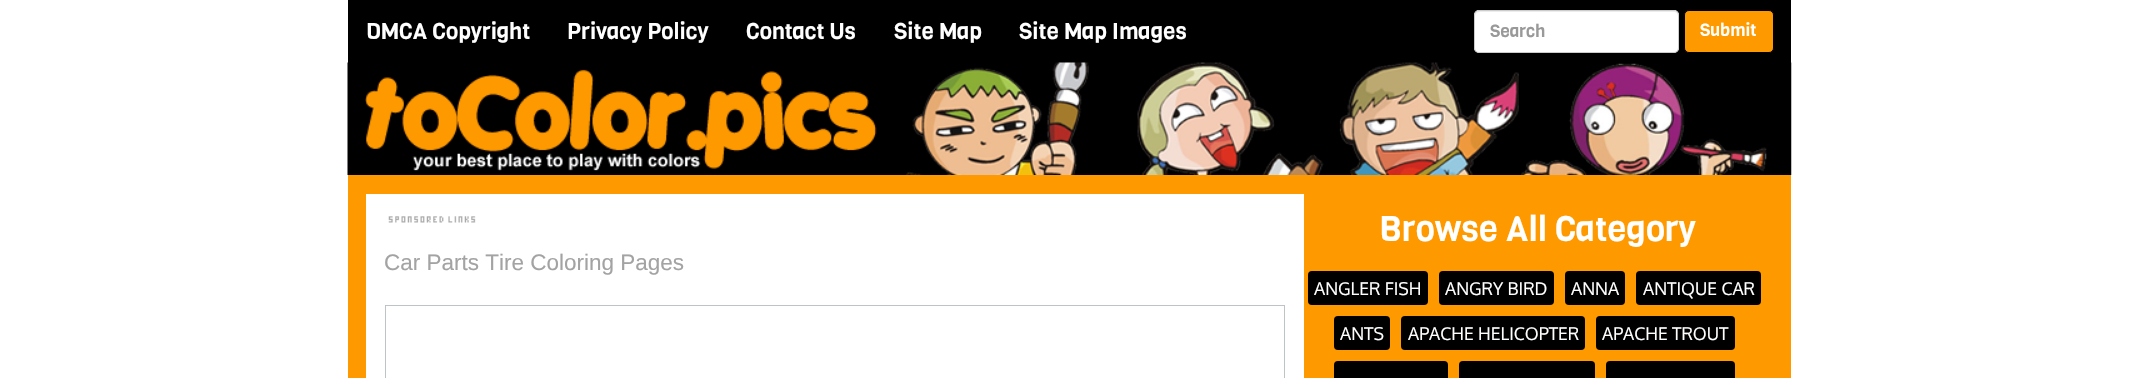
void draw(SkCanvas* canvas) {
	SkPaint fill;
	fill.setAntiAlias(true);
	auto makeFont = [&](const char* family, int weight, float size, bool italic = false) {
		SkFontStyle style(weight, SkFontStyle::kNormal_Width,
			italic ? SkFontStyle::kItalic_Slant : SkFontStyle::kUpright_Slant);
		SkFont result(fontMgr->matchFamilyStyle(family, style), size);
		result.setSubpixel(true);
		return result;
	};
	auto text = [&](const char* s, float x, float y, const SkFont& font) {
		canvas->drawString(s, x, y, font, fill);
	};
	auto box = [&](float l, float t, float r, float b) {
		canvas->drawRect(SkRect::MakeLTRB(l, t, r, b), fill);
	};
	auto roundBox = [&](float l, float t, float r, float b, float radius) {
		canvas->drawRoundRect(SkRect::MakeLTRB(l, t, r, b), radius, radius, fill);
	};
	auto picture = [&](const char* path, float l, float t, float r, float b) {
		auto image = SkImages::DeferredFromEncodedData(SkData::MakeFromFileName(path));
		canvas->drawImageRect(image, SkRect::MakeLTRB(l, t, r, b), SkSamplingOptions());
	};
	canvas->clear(0xFFFFFFFF);
	fill.setColor(0xFF000000);
	box(348, 0, 1791, 63);
	fill.setColor(0xFFFFFFFF);
	roundBox(1474, 10, 1679, 53, 5);
	fill.setColor(0xFFECECEC);
	canvas->drawPath(SkPathBuilder().moveTo(1479, 12).lineTo(1674, 12).cubicTo(1676, 12, 1678, 14, 1678, 16).lineTo(1678, 15).cubicTo(1678, 13, 1676, 11, 1674, 11).lineTo(1479, 11).cubicTo(1477, 11, 1475, 13, 1475, 15).lineTo(1475, 16).cubicTo(1475, 14, 1477, 12, 1479, 12).close().detach(), fill);
	fill.setStyle(SkPaint::kStroke_Style);
	fill.setStrokeWidth(1);
	fill.setColor(0xFFCCCCCC);
	canvas->drawRoundRect(SkRect::MakeLTRB(1474.5f, 10.5f, 1678.5f, 52.5f), 4.5f, 4.5f, fill);
	fill.setStyle(SkPaint::kFill_Style);
	fill.setColor(0xFFFF9900);
	canvas->drawRoundRect(SkRect::MakeLTRB(1684.5f, 10.5f, 1773.5f, 52.5f), 4.5f, 4.5f, fill);
	fill.setStyle(SkPaint::kStroke_Style);
	fill.setColor(0xFF000000);
	canvas->drawRoundRect(SkRect::MakeLTRB(1684.5f, 10.5f, 1773.5f, 52.5f), 4.5f, 4.5f, fill);
	picture("image0.png", 347, 62, 1792, 175);
	fill.setStyle(SkPaint::kFill_Style);
	fill.setColor(0xFFFF9900);
	box(348, 175, 1791, 378);
	fill.setColor(0xFFFFFFFF);
	box(366, 194, 1304, 378);
	picture("image1.png", 388, 216, 476, 223);
	fill.setStyle(SkPaint::kStroke_Style);
	fill.setColor(0xFFBDC3C7);
	canvas->drawRect(SkRect::MakeLTRB(385.5f, 305.5f, 1284.5f, 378.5f), fill);
	fill.setStyle(SkPaint::kFill_Style);
	fill.setColor(0xFF000000);
	roundBox(1308, 271, 1428, 305, 4);
	roundBox(1439, 271, 1554, 305, 4);
	roundBox(1565, 271, 1625, 305, 4);
	roundBox(1636, 271, 1761, 305, 4);
	roundBox(1334, 316, 1390, 350, 4);
	roundBox(1401, 316, 1585, 350, 4);
	roundBox(1596, 316, 1735, 350, 4);
	roundBox(1334, 361, 1448, 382, 4);
	roundBox(1459, 361, 1595, 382, 4);
	roundBox(1606, 361, 1735, 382, 4);
	auto font1 = makeFont("Viga", 400, 22.5f);
	fill.setColor(0xFFFFFFFF);
	text("DMCA Copyright", 366, 39, font1);
	text("Privacy Policy", 567, 39, font1);
	text("Contact Us", 746, 39, font1);
	text("Site Map", 894, 39, font1);
	text("Site Map Images", 1019, 39, font1);
	auto font2 = makeFont("Viga", 400, 17.5f);
	fill.setColor(0xFF999999);
	text("Search", 1490, 37, font2);
	fill.setColor(0xFFFFFFFF);
	text("Submit", 1700, 36, font2);
	auto font3 = makeFont("Liberation Sans", 400, 22.5f);
	fill.setColor(0xFFA3A3A3);
	text("Car Parts Tire Coloring Pages", 384, 270, font3);
	auto font4 = makeFont("Viga", 400, 35);
	fill.setColor(0xFFFFFFFF);
	text("Browse All Category", 1379, 241, font4);
	auto font5 = makeFont("Oxygen", 400, 17.5f);
	text("ANGLER FISH", 1314, 295, font5);
	text("ANGRY BIRD", 1445, 295, font5);
	text("ANNA", 1571, 295, font5);
	text("ANTIQUE CAR", 1643, 295, font5);
	text("ANTS", 1340, 340, font5);
	text("APACHE HELICOPTER", 1408, 340, font5);
	text("APACHE TROUT", 1602, 340, font5);
}
